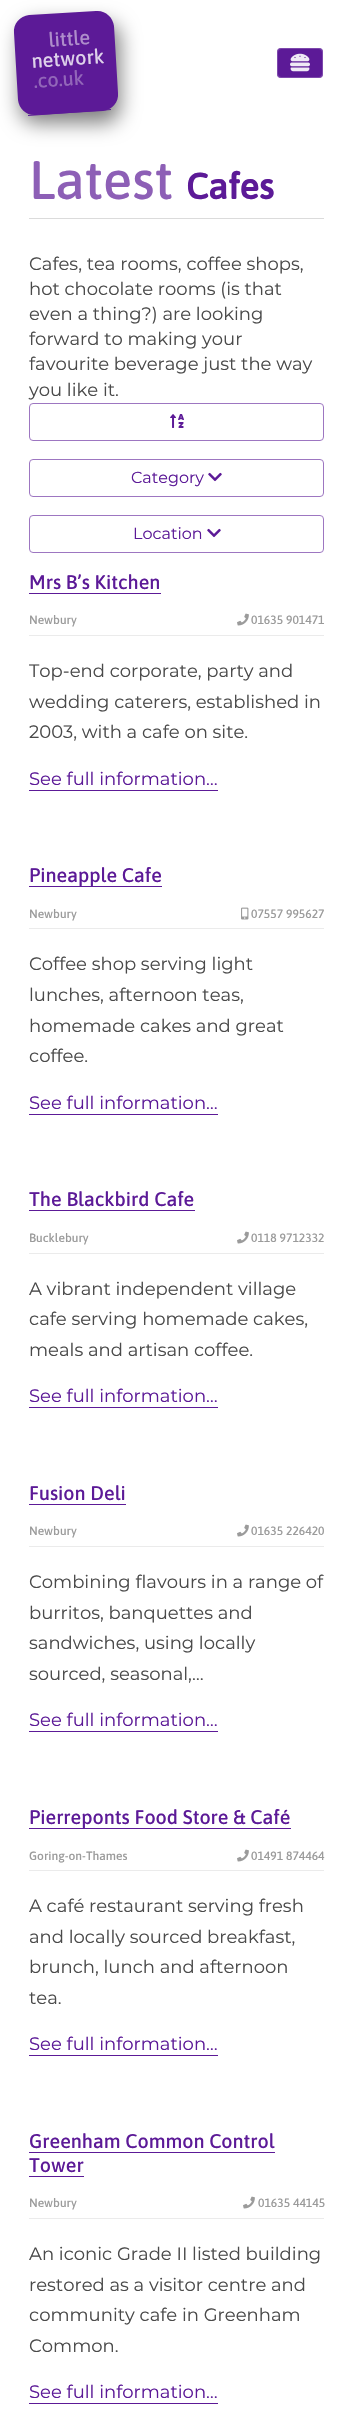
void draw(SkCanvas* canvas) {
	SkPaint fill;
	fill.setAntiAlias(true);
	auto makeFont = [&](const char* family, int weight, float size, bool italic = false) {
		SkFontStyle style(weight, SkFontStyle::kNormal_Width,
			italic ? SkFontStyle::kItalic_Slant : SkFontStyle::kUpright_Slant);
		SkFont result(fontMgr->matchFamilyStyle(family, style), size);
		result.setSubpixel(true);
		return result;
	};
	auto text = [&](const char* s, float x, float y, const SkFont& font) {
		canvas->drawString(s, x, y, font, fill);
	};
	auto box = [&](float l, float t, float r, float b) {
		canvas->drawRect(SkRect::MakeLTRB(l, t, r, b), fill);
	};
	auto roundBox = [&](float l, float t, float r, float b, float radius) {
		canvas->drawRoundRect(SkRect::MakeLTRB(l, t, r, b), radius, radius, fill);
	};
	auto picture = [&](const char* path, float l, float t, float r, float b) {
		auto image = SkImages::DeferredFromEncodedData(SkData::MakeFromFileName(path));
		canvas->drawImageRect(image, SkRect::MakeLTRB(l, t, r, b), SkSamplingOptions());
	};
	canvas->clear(0xFFFFFFFF);
	fill.setColor(0x80000000);
	fill.setMaskFilter(SkMaskFilter::MakeBlur(kNormal_SkBlurStyle, 10));
	canvas->drawRoundRect(SkRect::MakeLTRB(20, 23, 120, 123), 16, 16, fill);
	fill.setMaskFilter(nullptr);
	fill.setColor(0xFF5C1A97);
	canvas->drawPath(SkPathBuilder().moveTo(29, 15).lineTo(96, 11).cubicTo(105, 10, 113, 17, 114, 26).lineTo(118, 93).cubicTo(119, 102, 112, 110, 103, 111).lineTo(36, 115).cubicTo(27, 116, 19, 109, 18, 100).lineTo(14, 33).cubicTo(13, 24, 20, 16, 29, 15).close().detach(), fill);
	canvas->drawPath(SkPathBuilder().moveTo(28, 115).lineTo(111, 109).lineTo(111, 110).lineTo(28, 116).close().detach(), fill);
	roundBox(277, 48, 323, 78, 4);
	fill.setStyle(SkPaint::kStroke_Style);
	fill.setStrokeWidth(1);
	fill.setColor(0x33FFFFFF);
	canvas->drawRoundRect(SkRect::MakeLTRB(277.5f, 48.5f, 322.5f, 77.5f), 3.5f, 3.5f, fill);
	picture("image0.png", 290, 53, 310, 72);
	fill.setStyle(SkPaint::kFill_Style);
	fill.setColor(0xFFDBDBDB);
	box(29, 218, 324, 219);
	fill.setStyle(SkPaint::kStroke_Style);
	fill.setColor(0xFF9D76C1);
	canvas->drawRoundRect(SkRect::MakeLTRB(29.5f, 403.5f, 323.5f, 440.5f), 3.5f, 3.5f, fill);
	picture("image1.png", 170, 414, 184, 428);
	canvas->drawRoundRect(SkRect::MakeLTRB(29.5f, 459.5f, 323.5f, 496.5f), 3.5f, 3.5f, fill);
	picture("image2.png", 208, 472, 222, 482);
	canvas->drawRoundRect(SkRect::MakeLTRB(29.5f, 515.5f, 323.5f, 552.5f), 3.5f, 3.5f, fill);
	picture("image2.png", 207, 528, 221, 538);
	fill.setStyle(SkPaint::kFill_Style);
	fill.setColor(0xFF5C1A97);
	box(29, 593, 161, 594);
	fill.setColor(0xFFEBEBEB);
	box(29, 635, 324, 636);
	picture("image3.png", 237, 613, 249, 626);
	fill.setColor(0xFF5C1A97);
	box(29, 790, 218, 791);
	box(29, 886, 162, 887);
	fill.setColor(0xFFEBEBEB);
	box(29, 928, 324, 929);
	picture("image4.png", 241, 907, 249, 920);
	fill.setColor(0xFF5C1A97);
	box(29, 1114, 218, 1115);
	box(29, 1210, 195, 1211);
	fill.setColor(0xFFEBEBEB);
	box(29, 1253, 324, 1254);
	picture("image3.png", 237, 1231, 249, 1244);
	fill.setColor(0xFF5C1A97);
	box(29, 1407, 218, 1408);
	box(29, 1504, 126, 1505);
	fill.setColor(0xFFEBEBEB);
	box(29, 1546, 324, 1547);
	picture("image3.png", 237, 1524, 249, 1537);
	fill.setColor(0xFF5C1A97);
	box(29, 1731, 218, 1732);
	box(29, 1828, 291, 1829);
	fill.setColor(0xFFEBEBEB);
	box(29, 1870, 324, 1871);
	picture("image3.png", 237, 1849, 249, 1862);
	fill.setColor(0xFF5C1A97);
	box(29, 2055, 218, 2056);
	box(29, 2152, 275, 2153);
	box(29, 2176, 84, 2177);
	fill.setColor(0xFFEBEBEB);
	box(29, 2218, 324, 2219);
	picture("image3.png", 243, 2196, 255, 2209);
	fill.setColor(0xFF5C1A97);
	box(29, 2403, 218, 2404);
	auto font1 = makeFont("Asap", 500, 20);
	fill.setColor(0xFFAE8DCB);
	canvas->save();
	canvas->rotate(-4, 49, 47);
	text("little", 49, 47, font1);
	canvas->restore();
	fill.setColor(0xFFDED1EA);
	canvas->save();
	canvas->rotate(-4, 32, 68);
	text("network", 32, 68, font1);
	canvas->restore();
	fill.setColor(0xFF9266B9);
	canvas->save();
	canvas->rotate(-4, 34, 88);
	text(".co.uk", 34, 88, font1);
	canvas->restore();
	auto font2 = makeFont("Asap", 500, 54);
	fill.setColor(0xFF8D5FB6);
	text("Latest", 29, 199, font2);
	auto font3 = makeFont("Asap", 700, 36);
	fill.setColor(0xFF5C1A97);
	text("Cafes", 186, 199, font3);
	auto font4 = makeFont("Montserrat", 400, 18);
	fill.setColor(0xFF4A4A4A);
	text("Cafes, tea rooms, coffee shops,", 29, 270, font4);
	text("hot chocolate rooms (is that", 29, 295, font4);
	text("even a thing?) are looking", 29, 320, font4);
	text("forward to making your", 29, 345, font4);
	text("favourite beverage just the way", 29, 370, font4);
	text("you like it.", 29, 396, font4);
	auto font5 = makeFont("Montserrat", 400, 16);
	fill.setColor(0xFF5C1A97);
	text("Category", 131, 483, font5);
	text("Location", 133, 539, font5);
	auto font6 = makeFont("Asap", 500, 19.75f);
	text("Mrs B’s Kitchen", 29, 589, font6);
	auto font7 = makeFont("Asap", 500, 12);
	fill.setColor(0xFF9B9B9B);
	text("Newbury", 29, 624, font7);
	text("01635 901471", 251, 624, font7);
	fill.setColor(0xFF4A4A4A);
	text("Top-end corporate, party and", 29, 677, font4);
	text("wedding caterers, established in", 29, 708, font4);
	text("2003, with a cafe on site.", 29, 738, font4);
	fill.setColor(0xFF5C1A97);
	text("See full information…", 29, 785, font4);
	text("Pineapple Cafe", 29, 882, font6);
	fill.setColor(0xFF9B9B9B);
	text("Newbury", 29, 918, font7);
	text("07557 995627", 251, 918, font7);
	fill.setColor(0xFF4A4A4A);
	text("Coffee shop serving light", 29, 970, font4);
	text("lunches, afternoon teas,", 29, 1001, font4);
	text("homemade cakes and great", 29, 1032, font4);
	text("coffee.", 29, 1062, font4);
	fill.setColor(0xFF5C1A97);
	text("See full information…", 29, 1109, font4);
	text("The Blackbird Cafe", 29, 1206, font6);
	fill.setColor(0xFF9B9B9B);
	text("Bucklebury", 29, 1242, font7);
	text("0118 9712332", 251, 1242, font7);
	fill.setColor(0xFF4A4A4A);
	text("A vibrant independent village", 29, 1295, font4);
	text("cafe serving homemade cakes,", 29, 1325, font4);
	text("meals and artisan coffee.", 29, 1356, font4);
	fill.setColor(0xFF5C1A97);
	text("See full information…", 29, 1402, font4);
	text("Fusion Deli", 29, 1500, font6);
	fill.setColor(0xFF9B9B9B);
	text("Newbury", 29, 1535, font7);
	text("01635 226420", 251, 1535, font7);
	fill.setColor(0xFF4A4A4A);
	text("Combining flavours in a range of", 29, 1588, font4);
	text("burritos, banquettes and", 29, 1619, font4);
	text("sandwiches, using locally", 29, 1649, font4);
	text("sourced, seasonal,…", 29, 1680, font4);
	fill.setColor(0xFF5C1A97);
	text("See full information…", 29, 1726, font4);
	text("Pierreponts Food Store & Café", 29, 1824, font6);
	fill.setColor(0xFF9B9B9B);
	text("Goring-on-Thames", 29, 1860, font7);
	text("01491 874464", 251, 1860, font7);
	fill.setColor(0xFF4A4A4A);
	text("A café restaurant serving fresh", 29, 1912, font4);
	text("and locally sourced breakfast,", 29, 1943, font4);
	text("brunch, lunch and afternoon", 29, 1973, font4);
	text("tea.", 29, 2004, font4);
	fill.setColor(0xFF5C1A97);
	text("See full information…", 29, 2050, font4);
	text("Greenham Common Control", 29, 2148, font6);
	text("Tower", 29, 2172, font6);
	fill.setColor(0xFF9B9B9B);
	text("Newbury", 29, 2207, font7);
	text("01635 44145", 258, 2207, font7);
	fill.setColor(0xFF4A4A4A);
	text("An iconic Grade II listed building", 29, 2260, font4);
	text("restored as a visitor centre and", 29, 2291, font4);
	text("community cafe in Greenham", 29, 2321, font4);
	text("Common.", 29, 2352, font4);
	fill.setColor(0xFF5C1A97);
	text("See full information…", 29, 2398, font4);
}
